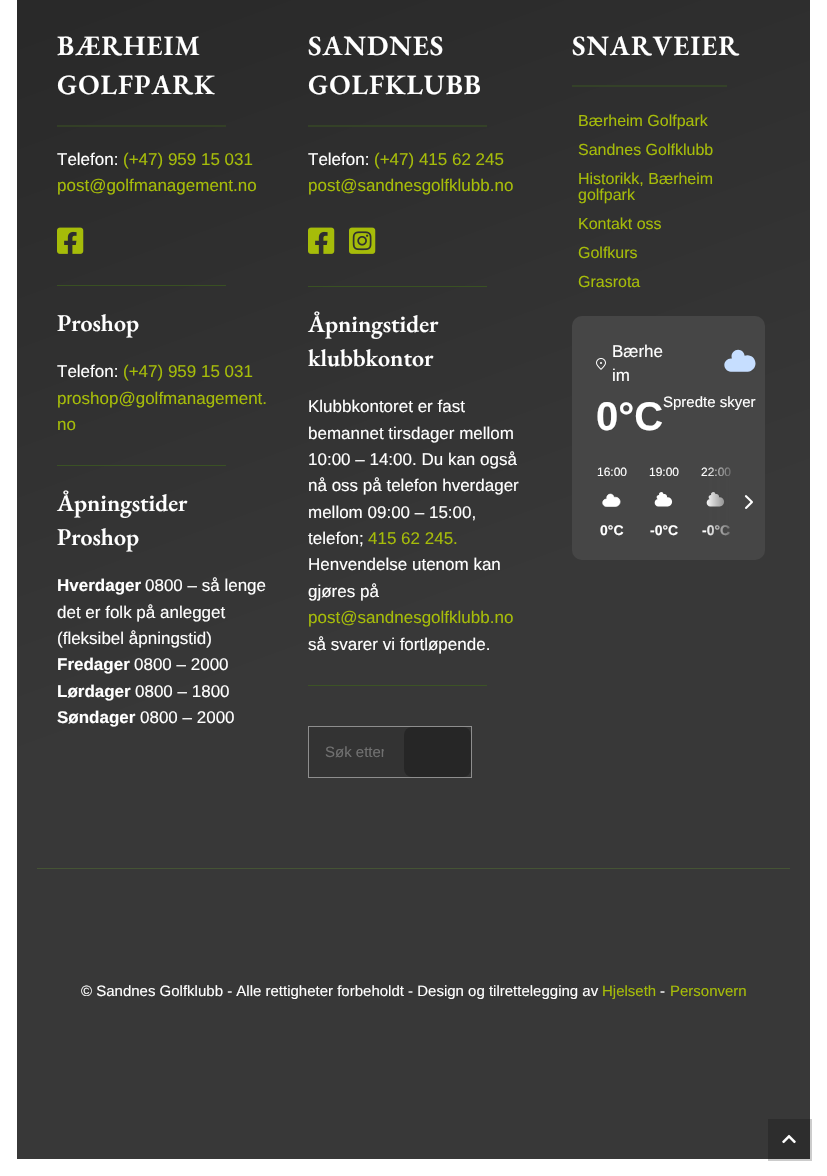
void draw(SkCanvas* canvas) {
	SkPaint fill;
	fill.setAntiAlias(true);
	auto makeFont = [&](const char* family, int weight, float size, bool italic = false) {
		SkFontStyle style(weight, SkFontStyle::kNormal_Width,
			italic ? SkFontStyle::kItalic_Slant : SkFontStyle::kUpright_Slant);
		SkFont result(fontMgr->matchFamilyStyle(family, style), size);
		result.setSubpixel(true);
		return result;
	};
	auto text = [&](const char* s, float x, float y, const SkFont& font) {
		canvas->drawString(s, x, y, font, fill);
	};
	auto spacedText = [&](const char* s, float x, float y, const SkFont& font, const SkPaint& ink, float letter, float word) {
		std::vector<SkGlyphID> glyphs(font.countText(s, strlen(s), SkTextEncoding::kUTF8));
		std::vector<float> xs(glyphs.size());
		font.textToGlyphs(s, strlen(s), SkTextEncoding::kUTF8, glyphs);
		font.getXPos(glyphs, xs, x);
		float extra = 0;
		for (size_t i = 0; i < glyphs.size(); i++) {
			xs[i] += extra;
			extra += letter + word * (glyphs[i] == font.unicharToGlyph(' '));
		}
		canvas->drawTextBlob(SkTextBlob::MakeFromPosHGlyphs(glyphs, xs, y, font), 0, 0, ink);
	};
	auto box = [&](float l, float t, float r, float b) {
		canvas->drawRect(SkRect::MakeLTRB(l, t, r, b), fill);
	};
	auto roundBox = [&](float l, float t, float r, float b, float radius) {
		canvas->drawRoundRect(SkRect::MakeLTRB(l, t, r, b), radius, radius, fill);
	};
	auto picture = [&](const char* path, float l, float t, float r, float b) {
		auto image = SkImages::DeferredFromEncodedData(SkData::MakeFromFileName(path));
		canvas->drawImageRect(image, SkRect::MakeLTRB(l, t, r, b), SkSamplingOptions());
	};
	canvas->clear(0xFFFFFFFF);
	fill.setColor(0xFFCCCCCC);
	box(768, 1119, 812, 1161);
	{
		const SkColor colors[] = {0xFF262626, 0xFF383838};
		const float stops[] = {0, 0.57f};
		const SkPoint ends[] = {{161, -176}, {666, 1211}};
		fill.setShader(SkGradientShader::MakeLinear(ends, colors, stops, 2, SkTileMode::kClamp));
		fill.setAlpha(255);
	}
	box(17, 0, 810, 1159);
	{
		const SkColor colors[] = {0xFF1E1E1E, 0xFF2D2D2D};
		const float stops[] = {0, 0.57f};
		const SkPoint ends[] = {{161, -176}, {666, 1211}};
		fill.setShader(SkGradientShader::MakeLinear(ends, colors, stops, 2, SkTileMode::kClamp));
		fill.setAlpha(255);
	}
	box(768, 1119, 810, 1159);
	fill.setShader(nullptr);
	fill.setColor(0xFF333F26);
	box(57, 125, 226, 127);
	picture("image0.png", 57, 227, 84, 254);
	fill.setColor(0xFF395022);
	box(57, 285, 226, 286);
	fill.setColor(0xFF3A5124);
	box(57, 465, 226, 466);
	fill.setColor(0xFF344127);
	box(308, 125, 487, 127);
	picture("image1.png", 308, 227, 335, 254);
	picture("image2.png", 349, 227, 376, 254);
	fill.setColor(0xFF395123);
	box(308, 286, 487, 287);
	fill.setColor(0xFF3C5325);
	box(308, 685, 487, 686);
	fill.setColor(0xFF333333);
	canvas->drawRect(SkRect::MakeLTRB(308.5f, 726.5f, 471.5f, 777.5f), fill);
	fill.setStyle(SkPaint::kStroke_Style);
	fill.setStrokeWidth(1);
	fill.setColor(0xFF8E8E8E);
	canvas->drawRect(SkRect::MakeLTRB(308.5f, 726.5f, 471.5f, 777.5f), fill);
	fill.setStyle(SkPaint::kFill_Style);
	fill.setColor(0xFF262626);
	roundBox(404, 727, 471, 777, 8);
	fill.setColor(0xFF344128);
	box(572, 85, 727, 87);
	fill.setColor(0xFF464646);
	roundBox(572, 316, 765, 560, 10);
	picture("image3.png", 596, 358, 606, 370);
	picture("image4.png", 724, 349, 756, 372);
	picture("image5.png", 602, 493, 621, 507);
	picture("image6.png", 654, 492, 673, 507);
	picture("image6.png", 706, 492, 725, 507);
	picture("image7.png", 744, 495, 753, 509);
	fill.setColor(0xFF455434);
	box(37, 868, 790, 869);
	picture("image8.png", 782, 1134, 796, 1144);
	auto font1 = makeFont("EB Garamond", 600, 28);
	fill.setColor(0xFFFFFFFF);
	spacedText("BÆRHEIM", 57, 55, font1, fill, 1, 0);
	spacedText("GOLFPARK", 57, 94, font1, fill, 1, 0);
	auto font2 = makeFont("Liberation Sans", 400, 17);
	text("Telefon:", 57, 165, font2);
	fill.setColor(0xFFA6BC09);
	text("(+47) 959 15 031", 123, 165, font2);
	text("post@golfmanagement.no", 57, 191, font2);
	auto font3 = makeFont("EB Garamond", 600, 24);
	fill.setColor(0xFFFFFFFF);
	text("Proshop", 57, 331, font3);
	text("Telefon:", 57, 377, font2);
	fill.setColor(0xFFA6BC09);
	text("(+47) 959 15 031", 123, 377, font2);
	text("proshop@golfmanagement.", 57, 404, font2);
	text("no", 57, 430, font2);
	fill.setColor(0xFFFFFFFF);
	text("Åpningstider", 57, 511, font3);
	text("Proshop", 57, 545, font3);
	auto font4 = makeFont("Liberation Sans", 700, 17);
	text("Hverdager", 57, 591, font4);
	text("0800 – så lenge", 145, 591, font2);
	text("det er folk på anlegget", 57, 618, font2);
	text("(fleksibel åpningstid)", 57, 644, font2);
	text("Fredager", 57, 670, font4);
	text("0800 – 2000", 134, 670, font2);
	text("Lørdager", 57, 697, font4);
	text("0800 – 1800", 135, 697, font2);
	text("Søndager", 57, 723, font4);
	text("0800 – 2000", 140, 723, font2);
	spacedText("SANDNES", 308, 55, font1, fill, 1, 0);
	spacedText("GOLFKLUBB", 308, 94, font1, fill, 1, 0);
	text("Telefon:", 308, 165, font2);
	fill.setColor(0xFFA6BC09);
	text("(+47) 415 62 245", 374, 165, font2);
	text("post@sandnesgolfklubb.no", 308, 191, font2);
	fill.setColor(0xFFFFFFFF);
	text("Åpningstider", 308, 332, font3);
	text("klubbkontor", 308, 366, font3);
	text("Klubbkontoret er fast", 308, 412, font2);
	text("bemannet tirsdager mellom", 308, 439, font2);
	text("10:00 – 14:00. Du kan også", 308, 465, font2);
	text("nå oss på telefon hverdager", 308, 491, font2);
	text("mellom 09:00 – 15:00,", 308, 518, font2);
	text("telefon;", 308, 544, font2);
	fill.setColor(0xFFA6BC09);
	text("415 62 245.", 368, 544, font2);
	fill.setColor(0xFFFFFFFF);
	text("Henvendelse utenom kan", 308, 570, font2);
	text("gjøres på", 308, 597, font2);
	fill.setColor(0xFFA6BC09);
	text("post@sandnesgolfklubb.no", 308, 623, font2);
	fill.setColor(0xFFFFFFFF);
	text("så svarer vi fortløpende.", 308, 650, font2);
	canvas->save();
	canvas->clipRect(SkRect::MakeLTRB(325, 743, 384, 760));
	auto font5 = makeFont("Liberation Sans", 400, 15);
	fill.setColor(0xFF707070);
	text("Søk etter", 325, 757, font5);
	canvas->restore();
	fill.setColor(0xFFFFFFFF);
	spacedText("SNARVEIER", 572, 55, font1, fill, 1, 0);
	auto font6 = makeFont("Liberation Sans", 400, 16);
	fill.setColor(0xFFA6BC09);
	text("Bærheim Golfpark", 578, 126, font6);
	text("Sandnes Golfklubb", 578, 155, font6);
	text("Historikk, Bærheim", 578, 184, font6);
	text("golfpark", 578, 200, font6);
	text("Kontakt oss", 578, 229, font6);
	text("Golfkurs", 578, 258, font6);
	text("Grasrota", 578, 287, font6);
	fill.setColor(0xFFFFFFFF);
	text("Bærhe", 612, 357, font2);
	text("im", 612, 381, font2);
	auto font7 = makeFont("Liberation Sans", 700, 40);
	text("0°C", 596, 430, font7);
	text("Spredte skyer", 663, 407, font5);
	auto font8 = makeFont("Liberation Sans", 400, 12);
	text("16:00", 597, 476, font8);
	auto font9 = makeFont("Liberation Sans", 700, 14);
	text("0°C", 600, 535, font9);
	text("19:00", 649, 476, font8);
	text("-0°C", 650, 535, font9);
	text("22:00", 701, 476, font8);
	text("-0°C", 702, 535, font9);
	{
		const SkColor colors[] = {0x00464646, 0xFF464646};
		const float stops[] = {0, 0.55f};
		const SkPoint ends[] = {{705, 502}, {765, 502}};
		fill.setShader(SkGradientShader::MakeLinear(ends, colors, stops, 2, SkTileMode::kClamp));
		fill.setAlpha(255);
	}
	box(706, 467, 731, 536);
	fill.setShader(nullptr);
	fill.setColor(0xFFFFFFFF);
	text("© Sandnes Golfklubb - Alle rettigheter forbeholdt - Design og tilrettelegging av", 81, 996, font5);
	fill.setColor(0xFFA6BC09);
	text("Hjelseth", 602, 996, font5);
	fill.setColor(0xFFFFFFFF);
	text("-", 660, 996, font5);
	fill.setColor(0xFFA6BC09);
	text("Personvern", 670, 996, font5);
}
